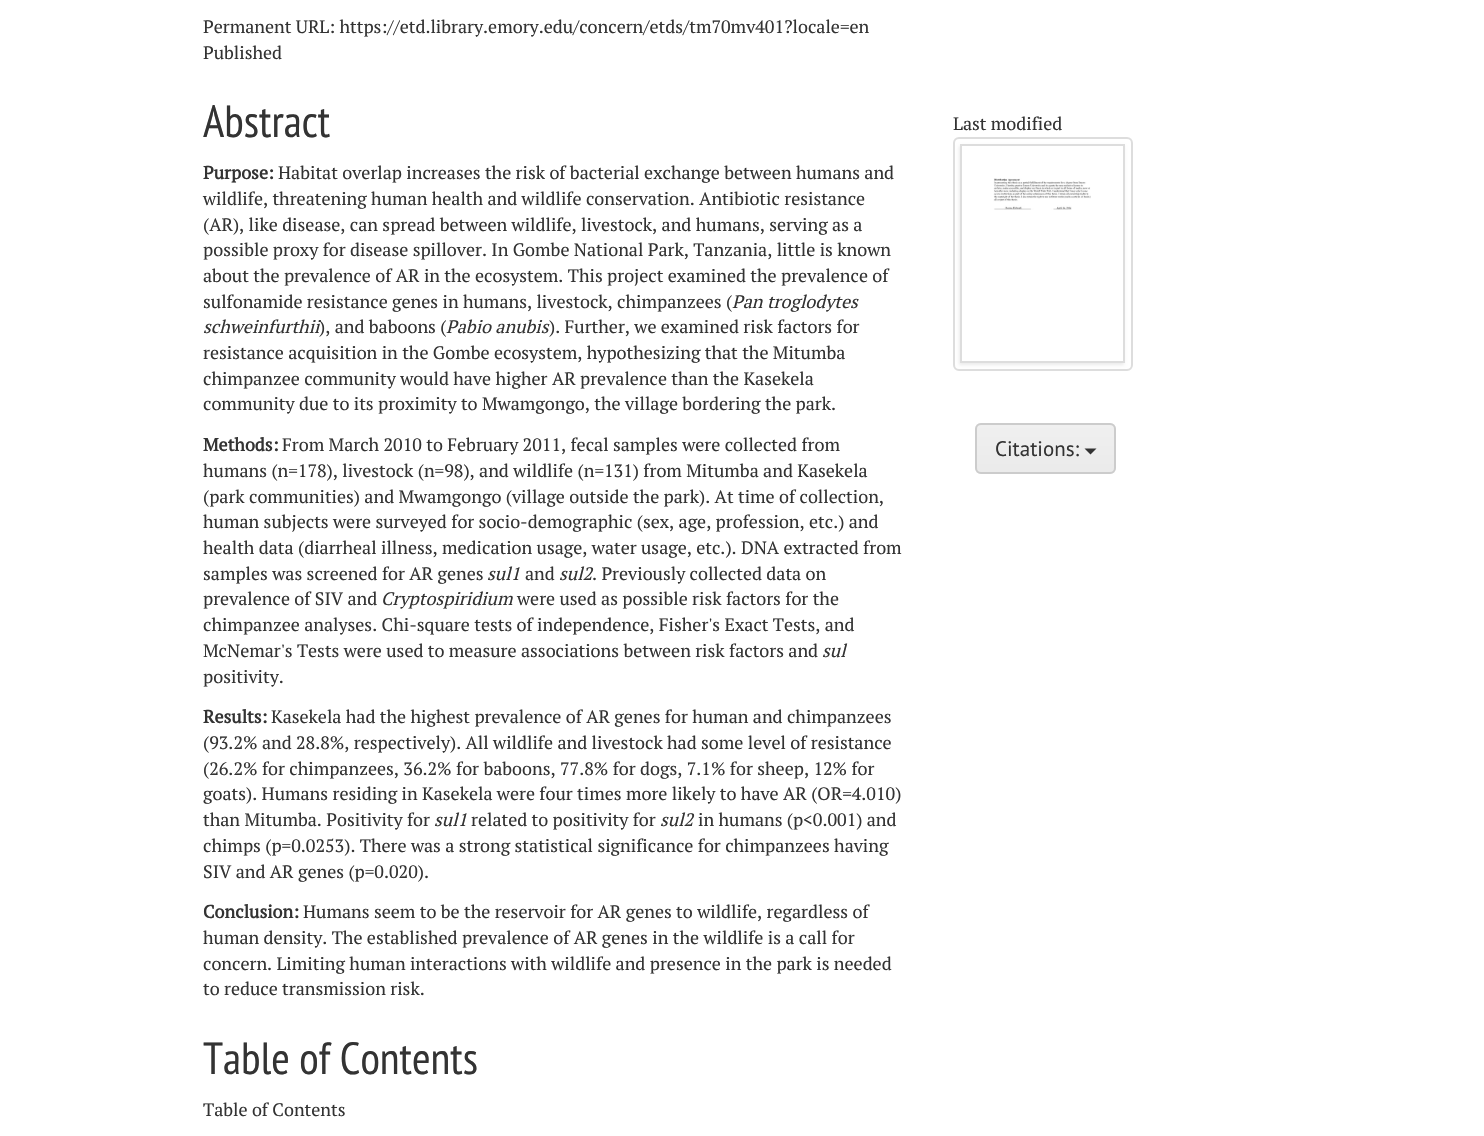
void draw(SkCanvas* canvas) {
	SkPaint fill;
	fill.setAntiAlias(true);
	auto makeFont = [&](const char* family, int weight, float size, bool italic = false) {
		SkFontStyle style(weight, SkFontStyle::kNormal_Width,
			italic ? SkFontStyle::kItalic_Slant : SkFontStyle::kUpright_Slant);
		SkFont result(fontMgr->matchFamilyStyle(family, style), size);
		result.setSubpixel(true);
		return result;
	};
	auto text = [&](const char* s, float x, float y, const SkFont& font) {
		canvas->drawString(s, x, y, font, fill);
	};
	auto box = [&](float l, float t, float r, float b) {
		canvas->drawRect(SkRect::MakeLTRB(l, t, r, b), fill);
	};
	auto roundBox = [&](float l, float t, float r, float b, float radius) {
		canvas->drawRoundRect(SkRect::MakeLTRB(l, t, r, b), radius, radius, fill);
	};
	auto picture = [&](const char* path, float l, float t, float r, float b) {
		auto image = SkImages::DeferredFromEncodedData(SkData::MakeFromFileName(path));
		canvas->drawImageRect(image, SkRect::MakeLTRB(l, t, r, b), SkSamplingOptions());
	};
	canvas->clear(0xFFFFFFFF);
	fill.setStyle(SkPaint::kStroke_Style);
	fill.setStrokeWidth(2);
	fill.setColor(0xFFDDDDDD);
	canvas->drawRoundRect(SkRect::MakeLTRB(954, 138, 1132, 370), 5, 5, fill);
	canvas->save();
	canvas->clipPath(SkPathBuilder(SkPathFillType::kEvenOdd).moveTo(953, 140).lineTo(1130, 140).lineTo(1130, 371).lineTo(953, 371).close().moveTo(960, 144).lineTo(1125, 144).lineTo(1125, 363).lineTo(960, 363).close().detach(), true);
	fill.setStyle(SkPaint::kFill_Style);
	fill.setColor(0x14000000);
	fill.setMaskFilter(SkMaskFilter::MakeBlur(kNormal_SkBlurStyle, 1.5f));
	canvas->drawRect(SkRect::MakeLTRB(959, 146, 1124, 365), fill);
	fill.setMaskFilter(nullptr);
	canvas->restore();
	fill.setStyle(SkPaint::kStroke_Style);
	fill.setColor(0xFFDDDDDD);
	canvas->drawRect(SkRect::MakeLTRB(961, 145, 1124, 362), fill);
	picture("image0.png", 993, 178, 1091, 210);
	fill.setStyle(SkPaint::kFill_Style);
	fill.setColor(0xFFEBEBEB);
	roundBox(975, 423, 1116, 474, 6);
	canvas->save();
	canvas->clipPath(SkPathBuilder().moveTo(981, 423).lineTo(1110, 423).cubicTo(1113.5f, 423, 1116, 425.5f, 1116, 429).lineTo(1116, 468).cubicTo(1116, 471.5f, 1113.5f, 474, 1110, 474).lineTo(981, 474).cubicTo(977.5f, 474, 975, 471.5f, 975, 468).lineTo(975, 429).cubicTo(975, 425.5f, 977.5f, 423, 981, 423).close().detach(), true);
	{
		const SkColor colors[] = {0x40FFFFFF, 0x00FFFFFF};
		const float stops[] = {0, 1};
		const SkPoint ends[] = {{1046, 425}, {1046, 473}};
		fill.setShader(SkGradientShader::MakeLinear(ends, colors, stops, 2, SkTileMode::kClamp));
		fill.setAlpha(255);
	}
	box(975, 425, 1116, 469);
	canvas->restore();
	fill.setStyle(SkPaint::kStroke_Style);
	fill.setShader(nullptr);
	fill.setColor(0xFFCCCCCC);
	canvas->drawRoundRect(SkRect::MakeLTRB(976, 424, 1115, 473), 5, 5, fill);
	fill.setStyle(SkPaint::kFill_Style);
	fill.setColor(0xFF333333);
	canvas->drawPath(SkPathBuilder().moveTo(1084.5f, 448.5f).lineTo(1096.5f, 448.5f).lineTo(1090.5f, 454.5f).close().detach(), fill);
	auto font1 = makeFont("PT Serif", 400, 18);
	text("Permanent URL: https://etd.library.emory.edu/concern/etds/tm70mv401?locale=en", 203, 33, font1);
	text("Published", 203, 59, font1);
	auto font2 = makeFont("PT Sans Narrow", 400, 45);
	text("Abstract", 203, 137, font2);
	auto font3 = makeFont("PT Serif", 700, 18);
	text("Purpose:", 203, 179, font3);
	text("Habitat overlap increases the risk of bacterial exchange between humans and", 278, 179, font1);
	text("wildlife, threatening human health and wildlife conservation. Antibiotic resistance", 203, 205, font1);
	text("(AR), like disease, can spread between wildlife, livestock, and humans, serving as a", 203, 231, font1);
	text("possible proxy for disease spillover. In Gombe National Park, Tanzania, little is known", 203, 256, font1);
	text("about the prevalence of AR in the ecosystem. This project examined the prevalence of", 203, 282, font1);
	text("sulfonamide resistance genes in humans, livestock, chimpanzees (", 203, 308, font1);
	auto font4 = makeFont("PT Serif", 400, 18, true);
	text("Pan troglodytes", 732, 308, font4);
	text("schweinfurthii", 203, 333, font4);
	text("), and baboons (", 319, 333, font1);
	text("Pabio anubis", 446, 333, font4);
	text("). Further, we examined risk factors for", 549, 333, font1);
	text("resistance acquisition in the Gombe ecosystem, hypothesizing that the Mitumba", 203, 359, font1);
	text("chimpanzee community would have higher AR prevalence than the Kasekela", 203, 385, font1);
	text("community due to its proximity to Mwamgongo, the village bordering the park.", 203, 410, font1);
	text("Methods:", 203, 451, font3);
	text("From March 2010 to February 2011, fecal samples were collected from", 282, 451, font1);
	text("humans (n=178), livestock (n=98), and wildlife (n=131) from Mitumba and Kasekela", 203, 477, font1);
	text("(park communities) and Mwamgongo (village outside the park). At time of collection,", 203, 503, font1);
	text("human subjects were surveyed for socio-demographic (sex, age, profession, etc.) and", 203, 528, font1);
	text("health data (diarrheal illness, medication usage, water usage, etc.). DNA extracted from", 203, 554, font1);
	text("samples was screened for AR genes", 203, 580, font1);
	text("sul1", 487, 580, font4);
	text("and", 525, 580, font1);
	text("sul2", 559, 580, font4);
	text(". Previously collected data on", 592, 580, font1);
	text("prevalence of SIV and", 203, 605, font1);
	text("Cryptospiridium", 381, 605, font4);
	text("were used as possible risk factors for the", 517, 605, font1);
	text("chimpanzee analyses. Chi-square tests of independence, Fisher's Exact Tests, and", 203, 631, font1);
	text("McNemar's Tests were used to measure associations between risk factors and", 203, 657, font1);
	text("sul", 822, 657, font4);
	text("positivity.", 203, 683, font1);
	text("Results:", 203, 723, font3);
	text("Kasekela had the highest prevalence of AR genes for human and chimpanzees", 271, 723, font1);
	text("(93.2% and 28.8%, respectively). All wildlife and livestock had some level of resistance", 203, 749, font1);
	text("(26.2% for chimpanzees, 36.2% for baboons, 77.8% for dogs, 7.1% for sheep, 12% for", 203, 775, font1);
	text("goats). Humans residing in Kasekela were four times more likely to have AR (OR=4.010)", 203, 800, font1);
	text("than Mitumba. Positivity for", 203, 826, font1);
	text("sul1", 434, 826, font4);
	text("related to positivity for", 471, 826, font1);
	text("sul2", 660, 826, font4);
	text("in humans (p<0.001) and", 698, 826, font1);
	text("chimps (p=0.0253). There was a strong statistical significance for chimpanzees having", 203, 852, font1);
	text("SIV and AR genes (p=0.020).", 203, 878, font1);
	text("Conclusion:", 203, 918, font3);
	text("Humans seem to be the reservoir for AR genes to wildlife, regardless of", 303, 918, font1);
	text("human density. The established prevalence of AR genes in the wildlife is a call for", 203, 944, font1);
	text("concern. Limiting human interactions with wildlife and presence in the park is needed", 203, 970, font1);
	text("to reduce transmission risk.", 203, 995, font1);
	text("Table of Contents", 203, 1074, font2);
	text("Table of Contents", 203, 1116, font1);
	text("Last modified", 953, 130, font1);
	auto font5 = makeFont("PT Sans", 400, 21);
	text("Citations:", 995, 456, font5);
}
